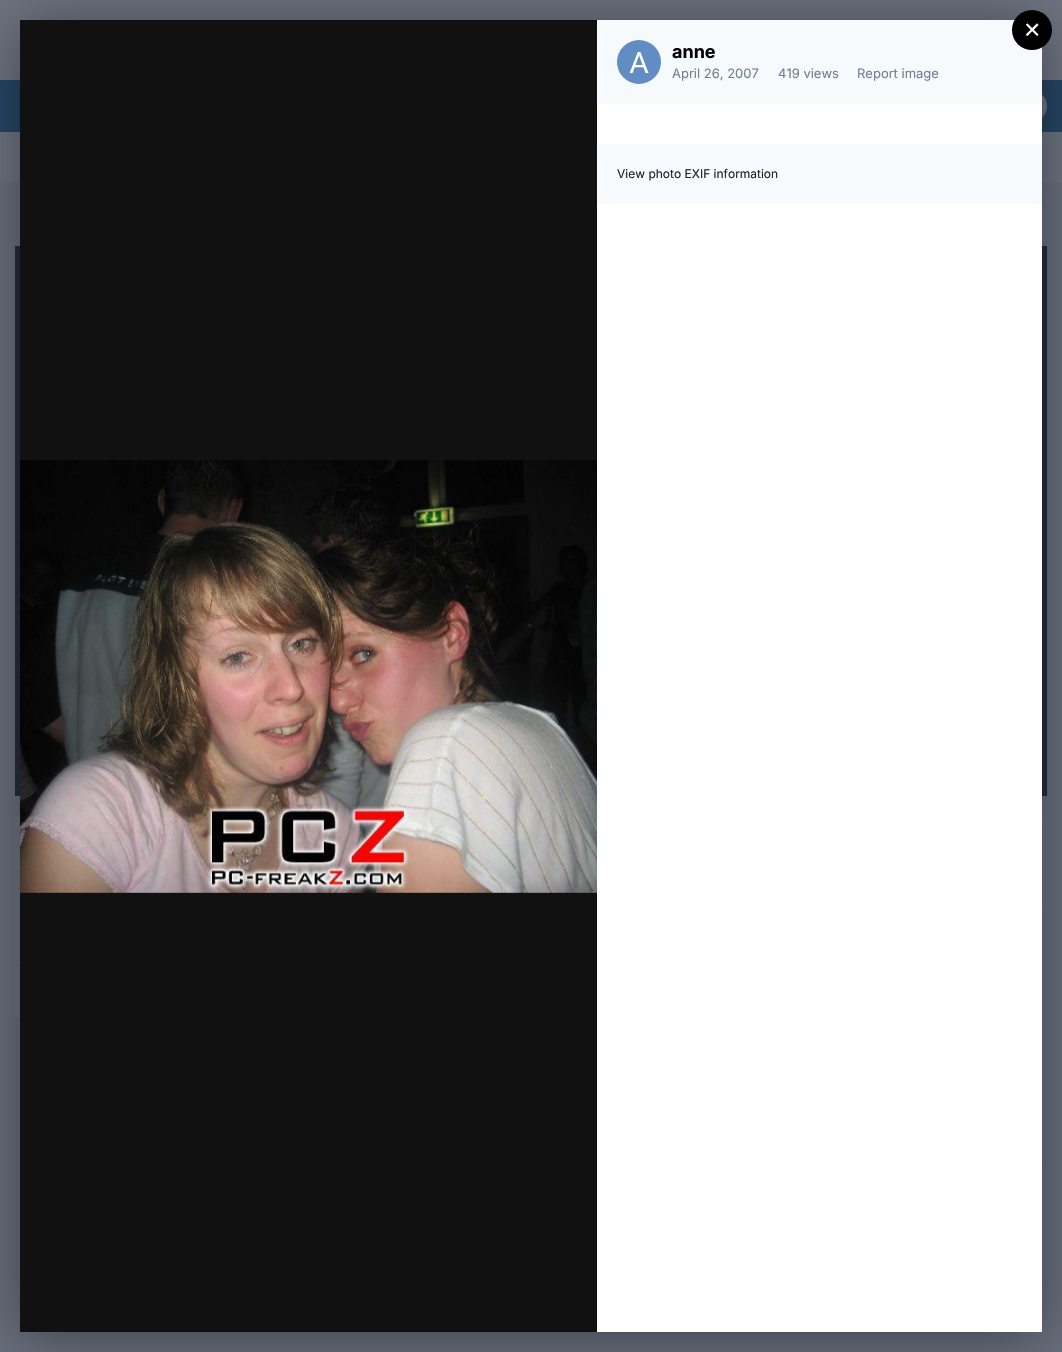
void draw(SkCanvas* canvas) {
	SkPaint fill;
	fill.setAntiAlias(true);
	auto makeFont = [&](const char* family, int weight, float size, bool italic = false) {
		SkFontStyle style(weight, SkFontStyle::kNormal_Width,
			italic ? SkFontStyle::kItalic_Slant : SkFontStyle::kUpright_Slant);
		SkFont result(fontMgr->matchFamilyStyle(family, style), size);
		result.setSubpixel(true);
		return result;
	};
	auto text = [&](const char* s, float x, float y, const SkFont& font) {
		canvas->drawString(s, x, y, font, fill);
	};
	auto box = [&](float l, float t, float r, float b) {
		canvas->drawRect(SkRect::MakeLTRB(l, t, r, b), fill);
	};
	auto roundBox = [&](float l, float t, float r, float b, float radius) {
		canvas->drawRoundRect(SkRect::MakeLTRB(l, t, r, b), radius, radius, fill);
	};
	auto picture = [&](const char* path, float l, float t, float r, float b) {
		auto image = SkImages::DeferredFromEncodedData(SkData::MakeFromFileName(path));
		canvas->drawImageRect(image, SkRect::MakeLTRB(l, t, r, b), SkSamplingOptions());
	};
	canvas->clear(0xFF676F7C);
	fill.setColor(0xFF6C737F);
	box(0, 0, 1062, 80);
	fill.setColor(0xFF254563);
	box(0, 80, 1062, 132);
	fill.setColor(0xFF6C737F);
	roundBox(697, 90, 1047, 122, 16);
	box(0, 132, 1062, 182);
	fill.setColor(0xFF252C38);
	box(15, 246, 1047, 796);
	fill.setColor(0xFF6C737F);
	roundBox(15, 816, 755, 1018, 4);
	fill.setColor(0xFF666D79);
	box(15, 960, 20, 961);
	fill.setColor(0xFF6C737F);
	roundBox(779, 816, 1047, 911, 4);
	fill.setColor(0x66000000);
	fill.setMaskFilter(SkMaskFilter::MakeBlur(kNormal_SkBlurStyle, 27.5f));
	canvas->drawRect(SkRect::MakeLTRB(20, 25, 1042, 1337), fill);
	fill.setMaskFilter(nullptr);
	fill.setColor(0xFFF7FAFC);
	box(597, 20, 1042, 104);
	fill.setColor(0xFF000000);
	canvas->drawCircle(1032, 30, 20, fill);
	fill.setColor(0xFF111111);
	box(20, 20, 597, 1332);
	fill.setColor(0xFFFFFFFF);
	canvas->drawCircle(639, 62, 22, fill);
	picture("image0.png", 617, 40, 661, 84);
	picture("image1.png", 20, 460, 597, 893);
	auto font1 = makeFont("Liberation Sans", 400, 28);
	text("×", 1024, 39, font1);
	auto font2 = makeFont("Inter", 700, 18);
	fill.setColor(0xFF000000);
	text("anne", 672, 58, font2);
	auto font3 = makeFont("Inter", 400, 13);
	fill.setColor(0xFF718096);
	text("April 26, 2007", 672, 78, font3);
	text("419 views", 778, 78, font3);
	text("Report image", 857, 78, font3);
	fill.setColor(0xFF4D5768);
	text("y", 1040, 210, font3);
	text("y", 1040, 1166, font3);
	fill.setColor(0xFFFFFFFF);
	box(597, 104, 1042, 1332);
	fill.setColor(0xFFF7FAFC);
	box(597, 144, 1042, 204);
	auto font4 = makeFont("Inter", 400, 12);
	fill.setColor(0xFF1A202C);
	text("View photo EXIF information", 617, 178, font4);
}
